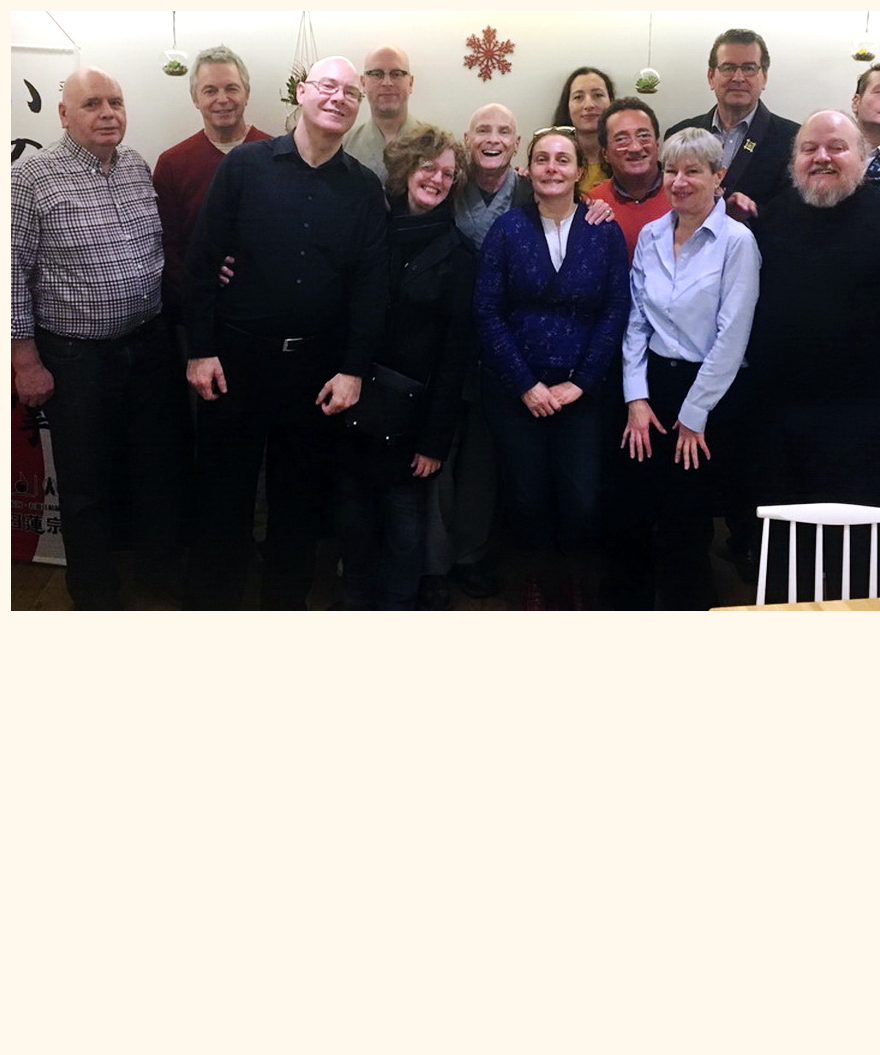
void draw(SkCanvas* canvas) {
	SkPaint fill;
	fill.setAntiAlias(true);
	auto picture = [&](const char* path, float l, float t, float r, float b) {
		auto image = SkImages::DeferredFromEncodedData(SkData::MakeFromFileName(path));
		canvas->drawImageRect(image, SkRect::MakeLTRB(l, t, r, b), SkSamplingOptions());
	};
	canvas->clear(0xFFFFF8EC);
	picture("image0.png", 11, 11, 880, 611);
}
